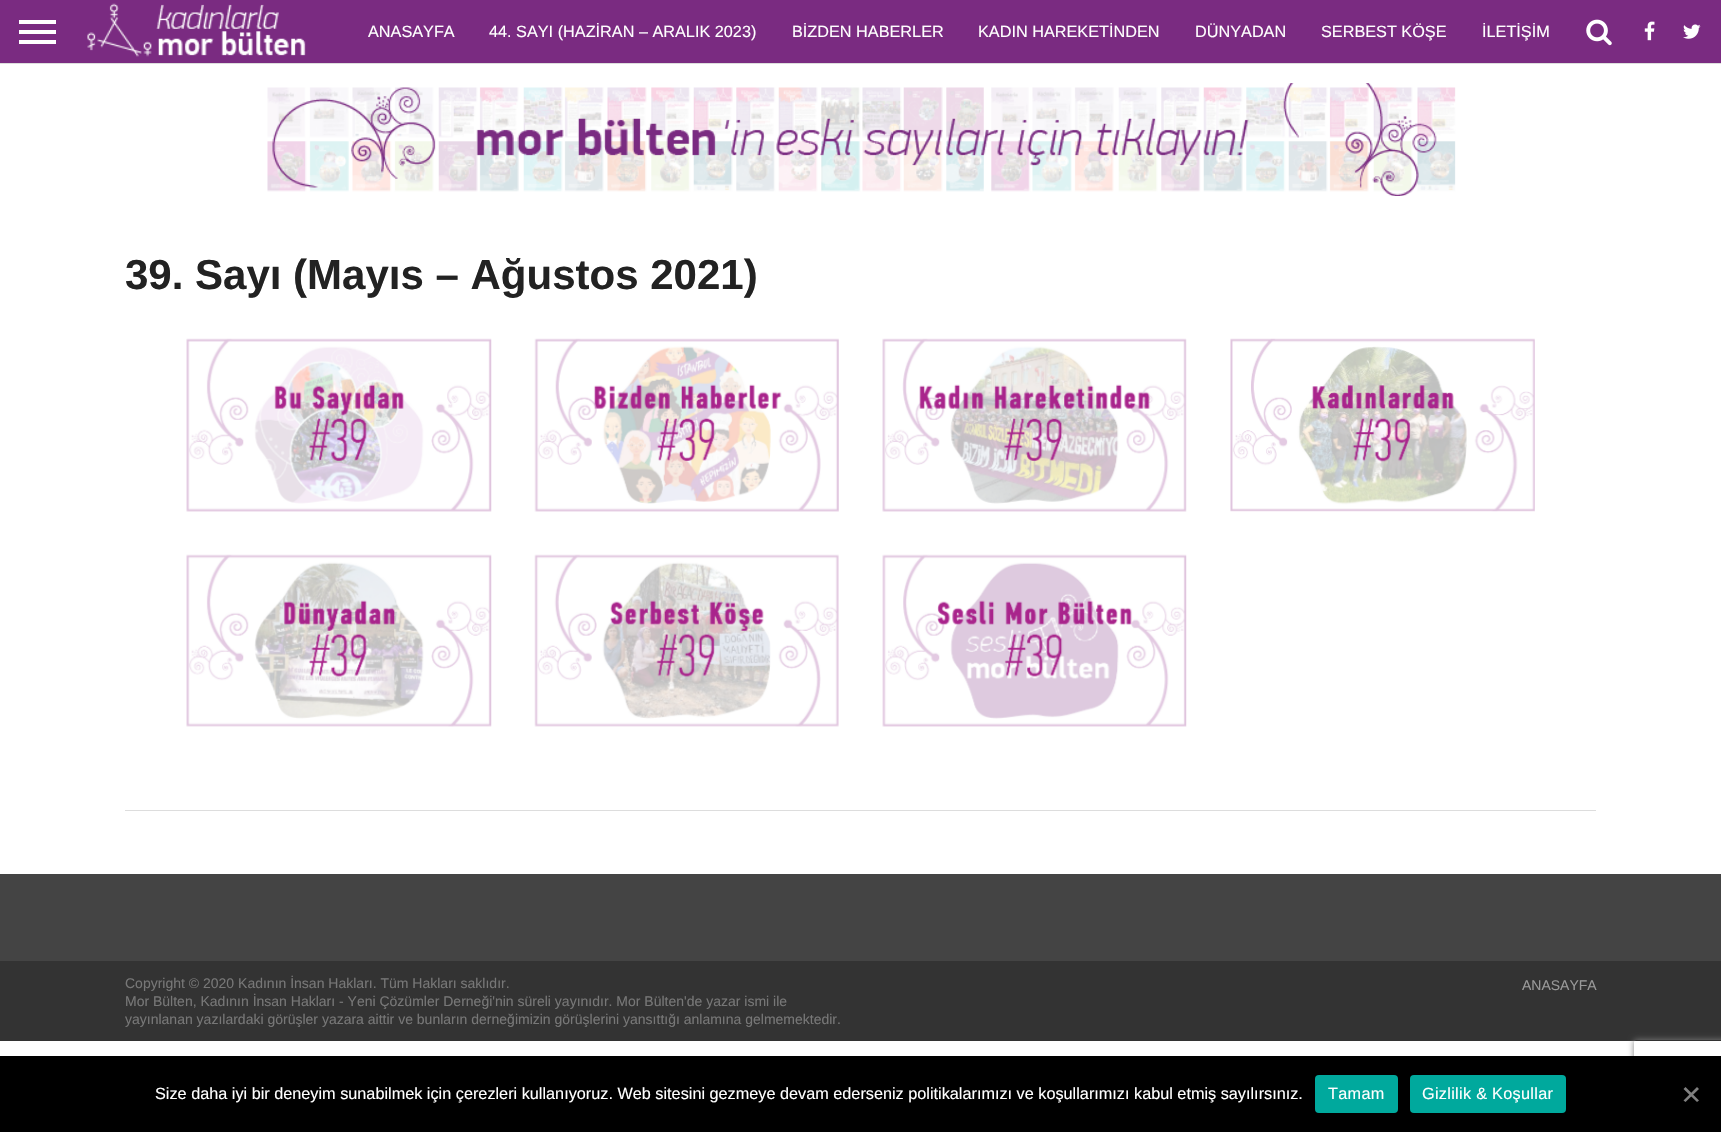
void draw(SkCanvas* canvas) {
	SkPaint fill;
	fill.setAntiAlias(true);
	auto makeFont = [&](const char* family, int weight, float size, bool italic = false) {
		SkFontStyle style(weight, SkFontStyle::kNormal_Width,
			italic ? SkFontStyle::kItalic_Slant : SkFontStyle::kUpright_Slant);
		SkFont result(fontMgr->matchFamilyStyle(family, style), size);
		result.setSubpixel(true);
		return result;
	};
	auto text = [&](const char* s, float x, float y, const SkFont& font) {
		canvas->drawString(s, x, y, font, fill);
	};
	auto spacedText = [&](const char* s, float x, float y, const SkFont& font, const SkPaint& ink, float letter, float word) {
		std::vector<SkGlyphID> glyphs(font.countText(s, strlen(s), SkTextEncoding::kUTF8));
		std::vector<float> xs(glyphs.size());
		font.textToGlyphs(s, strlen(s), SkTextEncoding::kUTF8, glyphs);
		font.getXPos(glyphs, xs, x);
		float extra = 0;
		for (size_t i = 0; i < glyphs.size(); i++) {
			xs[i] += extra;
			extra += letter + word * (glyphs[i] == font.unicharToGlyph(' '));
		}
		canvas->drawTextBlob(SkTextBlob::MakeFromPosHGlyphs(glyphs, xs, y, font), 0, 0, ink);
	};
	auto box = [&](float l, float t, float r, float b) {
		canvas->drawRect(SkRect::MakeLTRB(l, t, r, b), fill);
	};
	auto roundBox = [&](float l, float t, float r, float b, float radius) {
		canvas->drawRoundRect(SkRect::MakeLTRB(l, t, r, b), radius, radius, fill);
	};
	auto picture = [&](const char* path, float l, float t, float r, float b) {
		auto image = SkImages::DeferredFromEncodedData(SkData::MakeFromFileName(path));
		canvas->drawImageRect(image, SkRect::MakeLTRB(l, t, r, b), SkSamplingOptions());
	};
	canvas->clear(0xFFFFFFFF);
	fill.setColor(0xFF7A2B81);
	box(0, 0, 1721, 63);
	fill.setColor(0xFFDDDDDD);
	box(0, 63, 1721, 64);
	fill.setColor(0xFFFFFFFF);
	box(19, 20, 56, 24);
	box(19, 30, 56, 34);
	box(19, 40, 56, 44);
	picture("image0.png", 87, 3, 306, 57);
	picture("image1.png", 1586, 19, 1612, 46);
	picture("image2.png", 1644, 21, 1655, 41);
	picture("image3.png", 1683, 24, 1701, 39);
	picture("image4.png", 267, 83, 1456, 196);
	fill.setColor(0xFFDDDDDD);
	box(125, 810, 1596, 811);
	picture("image5.png", 186, 338, 492, 512);
	picture("image6.png", 186, 554, 492, 727);
	picture("image7.png", 534, 338, 839, 512);
	picture("image8.png", 534, 554, 839, 727);
	picture("image9.png", 882, 338, 1187, 512);
	picture("image10.png", 882, 554, 1187, 727);
	picture("image11.png", 1230, 338, 1535, 512);
	fill.setColor(0xFF444444);
	box(0, 874, 1721, 961);
	fill.setColor(0xFF333333);
	box(0, 961, 1721, 1041);
	canvas->save();
	canvas->clipPath(SkPathBuilder(SkPathFillType::kEvenOdd).moveTo(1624, 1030).lineTo(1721, 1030).lineTo(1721, 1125).lineTo(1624, 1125).close().moveTo(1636.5f, 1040).lineTo(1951.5f, 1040).cubicTo(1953, 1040, 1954, 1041, 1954, 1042.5f).lineTo(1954, 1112.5f).cubicTo(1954, 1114, 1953, 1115, 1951.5f, 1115).lineTo(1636.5f, 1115).cubicTo(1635, 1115, 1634, 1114, 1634, 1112.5f).lineTo(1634, 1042.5f).cubicTo(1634, 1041, 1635, 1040, 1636.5f, 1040).close().detach(), true);
	fill.setColor(0xFF808080);
	fill.setMaskFilter(SkMaskFilter::MakeBlur(kNormal_SkBlurStyle, 3));
	canvas->drawRoundRect(SkRect::MakeLTRB(1634, 1040, 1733, 1115), 2.5f, 2.5f, fill);
	fill.setMaskFilter(nullptr);
	canvas->restore();
	fill.setColor(0xFF000000);
	box(0, 1056, 1721, 1132);
	fill.setColor(0xFF00A99D);
	roundBox(1315, 1075, 1398, 1113, 4);
	roundBox(1410, 1075, 1566, 1113, 4);
	fill.setColor(0xFF808080);
	canvas->drawPath(SkPathBuilder().moveTo(1697, 1087).lineTo(1699, 1089).lineTo(1685.5f, 1102).lineTo(1683.5f, 1100.5f).close().detach(), fill);
	canvas->drawPath(SkPathBuilder().moveTo(1683.5f, 1089).lineTo(1685.5f, 1087).lineTo(1699, 1100.5f).lineTo(1697, 1102).close().detach(), fill);
	auto font1 = makeFont("Liberation Sans", 400, 16.25f);
	fill.setColor(0xFFFFFFFF);
	text("ANASAYFA", 368, 37, font1);
	text("44. SAYI (HAZİRAN – ARALIK 2023)", 489, 37, font1);
	text("BİZDEN HABERLER", 792, 37, font1);
	text("KADIN HAREKETİNDEN", 978, 37, font1);
	text("DÜNYADAN", 1195, 37, font1);
	text("SERBEST KÖŞE", 1321, 37, font1);
	text("İLETİŞİM", 1482, 37, font1);
	auto font2 = makeFont("Liberation Sans", 700, 42);
	fill.setColor(0xFF222222);
	text("39. Sayı (Mayıs – Ağustos 2021)", 125, 289, font2);
	auto font3 = makeFont("Liberation Sans", 400, 14);
	fill.setColor(0xFF777777);
	text("Copyright © 2020 Kadının İnsan Hakları. Tüm Hakları saklıdır.", 125, 988, font3);
	text("Mor Bülten, Kadının İnsan Hakları - Yeni Çözümler Derneği'nin süreli yayınıdır. Mor Bülten'de yazar ismi ile", 125, 1006, font3);
	text("yayınlanan yazılardaki görüşler yazara aittir ve bunların derneğimizin görüşlerini yansıttığı anlamına gelmemektedir.", 125, 1024, font3);
	fill.setColor(0xFF999999);
	text("ANASAYFA", 1522, 990, font3);
	fill.setColor(0xFFFFFFFF);
	text("Size daha iyi bir deneyim sunabilmek için çerezleri kullanıyoruz. Web sitesini gezmeye devam ederseniz politikalarımızı ve koşullarımızı kabul etmiş sayılırsınız.", 155, 1099, font1);
	spacedText("Tamam", 1328, 1099, font1, fill, 0.3f, 0);
	spacedText("Gizlilik & Koşullar", 1422, 1099, font1, fill, 0.3f, 0);
}
